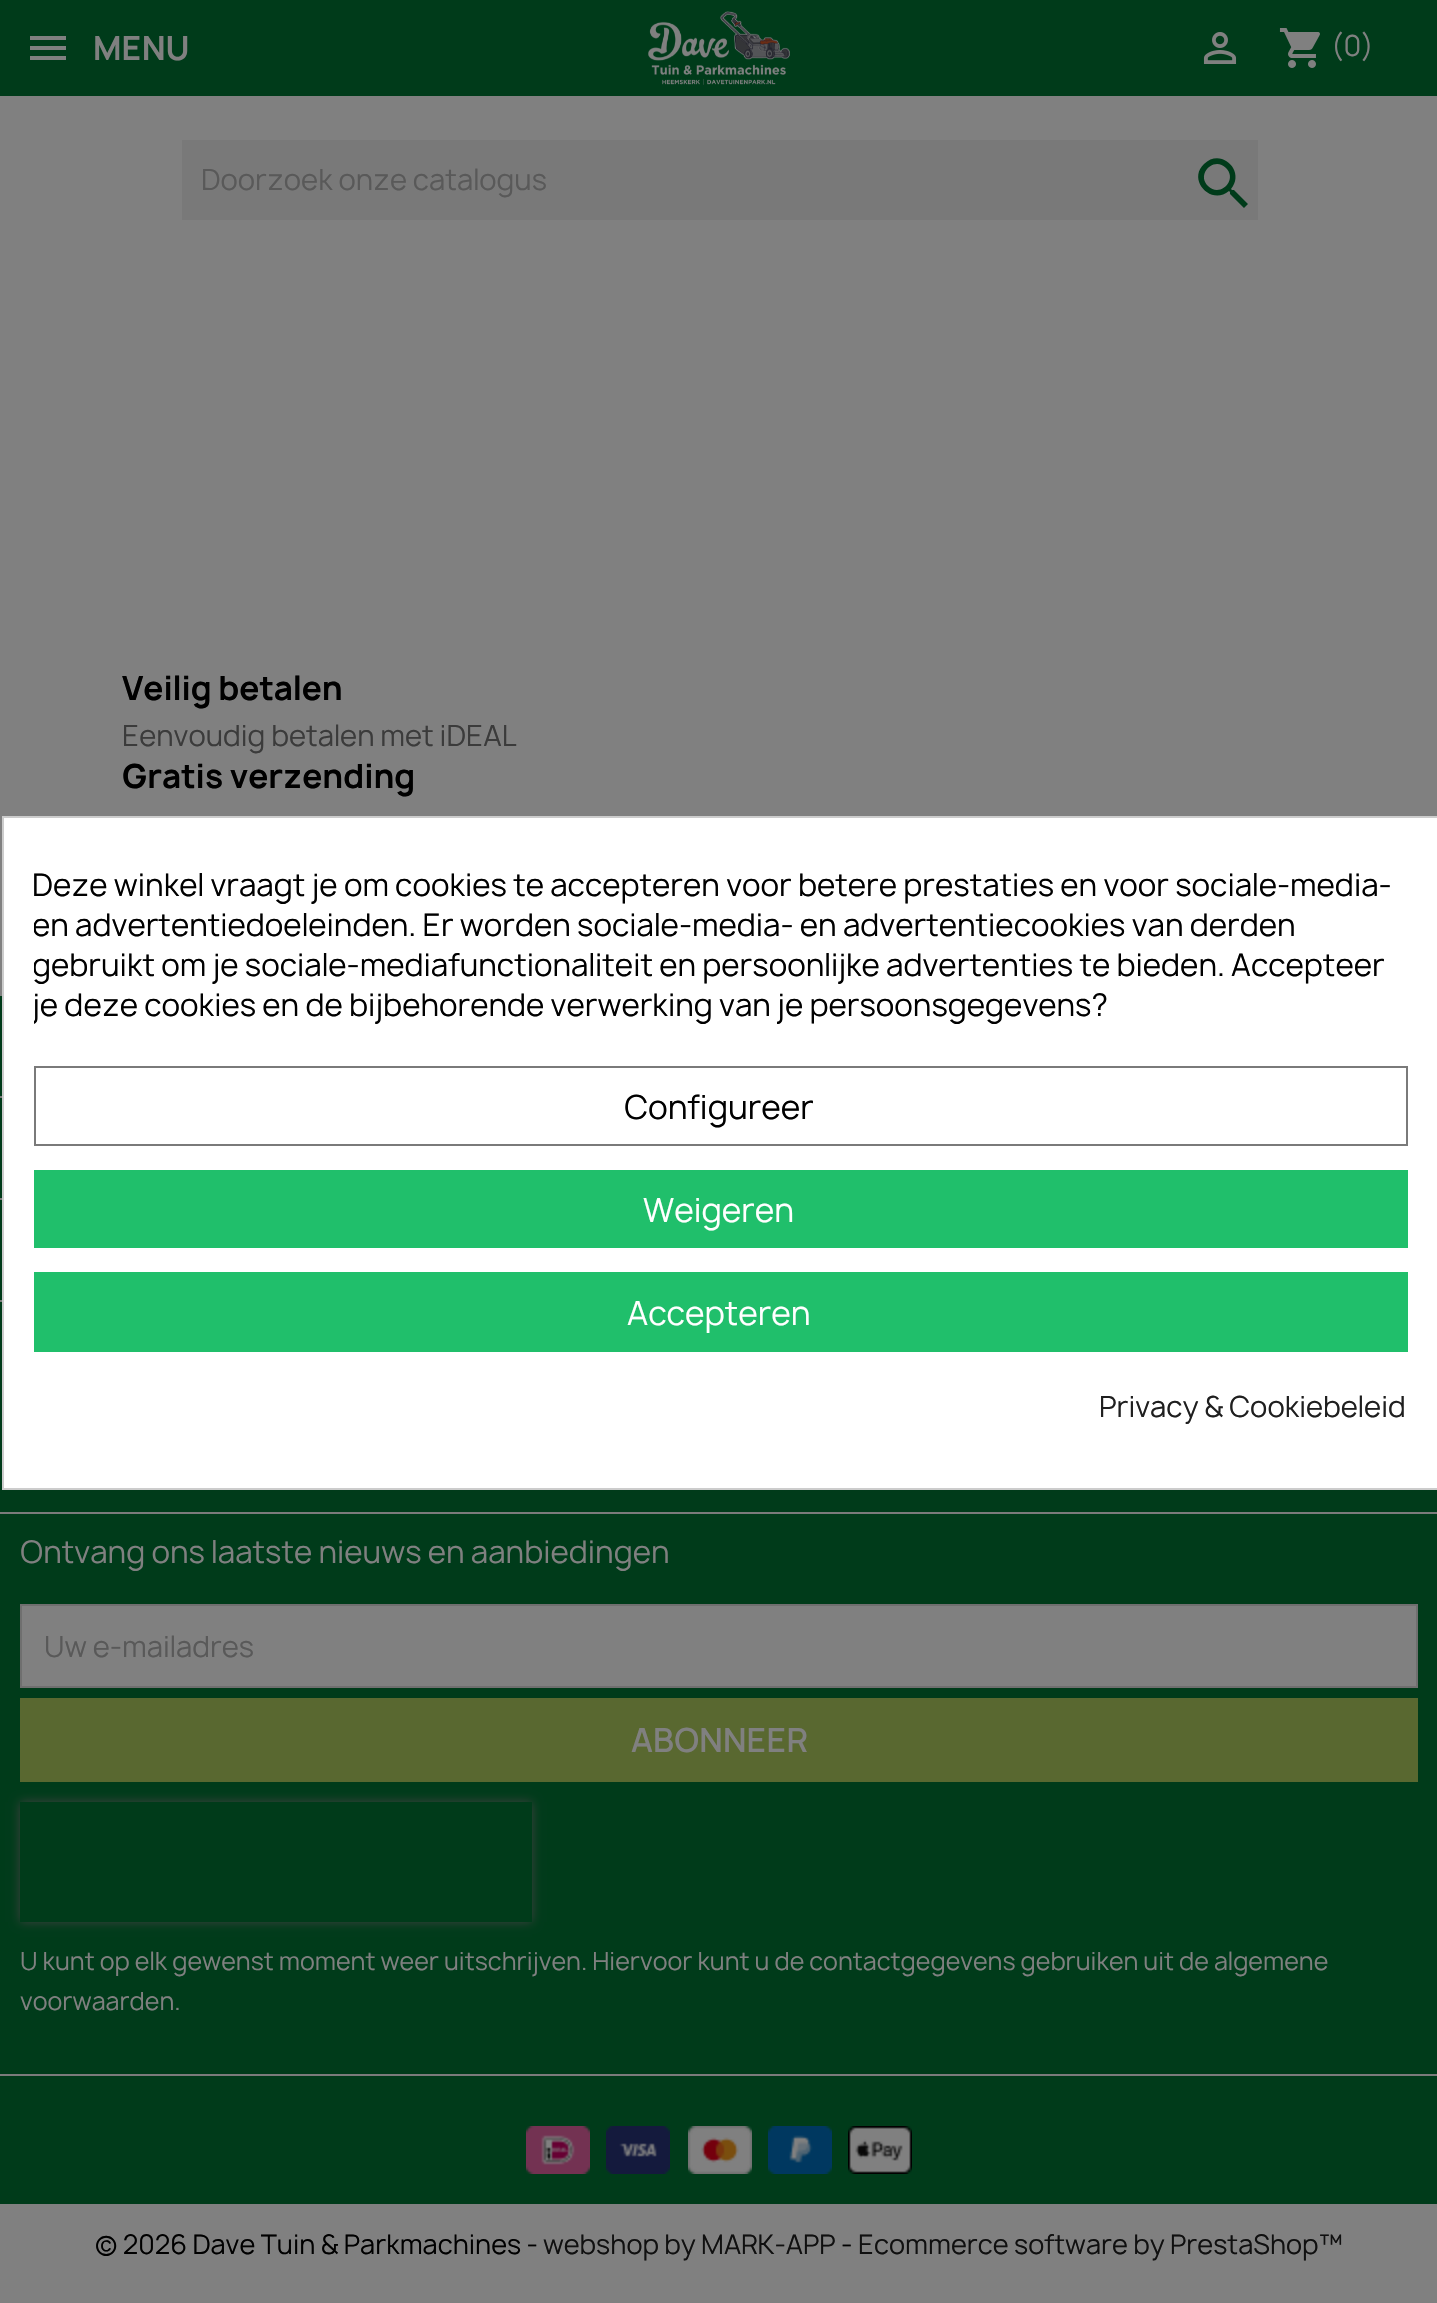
void draw(SkCanvas* canvas) {
	SkPaint fill;
	fill.setAntiAlias(true);
	auto makeFont = [&](const char* family, int weight, float size, bool italic = false) {
		SkFontStyle style(weight, SkFontStyle::kNormal_Width,
			italic ? SkFontStyle::kItalic_Slant : SkFontStyle::kUpright_Slant);
		SkFont result(fontMgr->matchFamilyStyle(family, style), size);
		result.setSubpixel(true);
		return result;
	};
	auto text = [&](const char* s, float x, float y, const SkFont& font) {
		canvas->drawString(s, x, y, font, fill);
	};
	auto box = [&](float l, float t, float r, float b) {
		canvas->drawRect(SkRect::MakeLTRB(l, t, r, b), fill);
	};
	auto picture = [&](const char* path, float l, float t, float r, float b) {
		auto image = SkImages::DeferredFromEncodedData(SkData::MakeFromFileName(path));
		canvas->drawImageRect(image, SkRect::MakeLTRB(l, t, r, b), SkSamplingOptions());
	};
	canvas->clear(0xFF808080);
	fill.setColor(0xFF003B1A);
	box(0, 0, 1437, 96);
	fill.setColor(0xFF808080);
	box(30, 36, 66, 40);
	box(30, 46, 66, 50);
	box(30, 56, 66, 60);
	picture("image0.png", 648, 11, 790, 85);
	picture("image1.png", 1203, 32, 1237, 64);
	picture("image2.png", 1279, 28, 1320, 68);
	fill.setColor(0xFF797979);
	box(182, 140, 1258, 220);
	fill.setColor(0xFF003B1A);
	canvas->drawPath(SkPathBuilder().moveTo(1208, 186).cubicTo(1220, 198, 1238, 180, 1226, 168).cubicTo(1214, 156, 1196, 174, 1208, 186).close().moveTo(1234, 190).lineTo(1248, 204).lineTo(1244, 208).lineTo(1230, 194).lineTo(1230, 192).lineTo(1229, 191).cubicTo(1211, 206, 1187, 180, 1204, 164).cubicTo(1221, 147, 1246, 171, 1231, 189).lineTo(1232, 190).close().detach(), fill);
	box(0, 996, 1437, 2204);
	fill.setColor(0xFF7B7B7B);
	box(0, 1096, 2, 1098);
	box(0, 1198, 2, 1200);
	box(0, 1300, 2, 1302);
	box(0, 1512, 1437, 1514);
	box(0, 2074, 1437, 2076);
	fill.setColor(0xFF808080);
	canvas->drawRect(SkRect::MakeLTRB(21, 1605, 1417, 1687), fill);
	fill.setStyle(SkPaint::kStroke_Style);
	fill.setStrokeWidth(2);
	fill.setColor(0xFF6F6F6F);
	canvas->drawRect(SkRect::MakeLTRB(21, 1605, 1417, 1687), fill);
	fill.setStyle(SkPaint::kFill_Style);
	fill.setColor(0xFF596830);
	box(20, 1698, 1418, 1782);
	canvas->save();
	canvas->clipPath(SkPathBuilder(SkPathFillType::kEvenOdd).moveTo(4, 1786).lineTo(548, 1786).lineTo(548, 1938).lineTo(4, 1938).close().moveTo(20, 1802).lineTo(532, 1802).lineTo(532, 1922).lineTo(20, 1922).close().detach(), true);
	fill.setColor(0xFF404040);
	fill.setMaskFilter(SkMaskFilter::MakeBlur(kNormal_SkBlurStyle, 5));
	canvas->drawRect(SkRect::MakeLTRB(20, 1802, 532, 1922), fill);
	fill.setMaskFilter(nullptr);
	canvas->restore();
	picture("image3.png", 526, 2126, 590, 2174);
	picture("image4.png", 606, 2126, 670, 2174);
	picture("image5.png", 688, 2126, 752, 2174);
	picture("image6.png", 768, 2126, 832, 2174);
	picture("image7.png", 848, 2126, 912, 2174);
	fill.setColor(0xFFFFFFFF);
	canvas->drawRect(SkRect::MakeLTRB(3, 817, 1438, 1489), fill);
	fill.setStyle(SkPaint::kStroke_Style);
	fill.setColor(0xFFCCCCCC);
	canvas->drawRect(SkRect::MakeLTRB(3, 817, 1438, 1489), fill);
	fill.setColor(0xFF7A7A7A);
	canvas->drawRect(SkRect::MakeLTRB(35, 1067, 1407, 1145), fill);
	fill.setStyle(SkPaint::kFill_Style);
	fill.setColor(0xFF20BF6B);
	box(34, 1170, 1408, 1248);
	box(34, 1272, 1408, 1352);
	auto font1 = makeFont("Manrope", 700, 32);
	fill.setColor(0xFF808080);
	text("MENU", 93, 60, font1);
	auto font2 = makeFont("Manrope", 400, 28);
	text("(0)", 1331, 56, font2);
	fill.setColor(0xFF595959);
	text("Doorzoek onze catalogus", 201, 190, font2);
	fill.setColor(0xFF000000);
	text("Veilig betalen", 122, 700, font1);
	fill.setColor(0xFF3B3B3B);
	text("Eenvoudig betalen met iDEAL", 122, 746, font2);
	fill.setColor(0xFF000000);
	text("Gratis verzending", 122, 788, font1);
	auto font3 = makeFont("Manrope", 400, 30);
	fill.setColor(0xFF808080);
	text("Ontvang ons laatste nieuws en aanbiedingen", 20, 1563, font3);
	fill.setColor(0xFF595959);
	text("Uw e-mailadres", 44, 1657, font2);
	auto font4 = makeFont("Manrope", 600, 32);
	fill.setColor(0xFF808080);
	text("ABONNEER", 631, 1752, font4);
	auto font5 = makeFont("Manrope", 400, 24);
	text("U kunt op elk gewenst moment weer uitschrijven. Hiervoor kunt u de contactgegevens gebruiken uit de algemene", 20, 1970, font5);
	text("voorwaarden.", 20, 2010, font5);
	auto font6 = makeFont("Manrope", 400, 26);
	fill.setColor(0xFF000000);
	text("© 2026 Dave Tuin & Parkmachines -", 95, 2254, font6);
	fill.setColor(0xFF101010);
	text("webshop by MARK-APP", 543, 2254, font6);
	fill.setColor(0xFF000000);
	text("-", 841, 2254, font6);
	fill.setColor(0xFF101010);
	text("Ecommerce software by PrestaShop™", 858, 2254, font6);
	fill.setColor(0xFF000000);
	text("Deze winkel vraagt je om cookies te accepteren voor betere prestaties en voor sociale-media-", 32, 896, font3);
	canvas->save();
	canvas->clipRect(SkRect::MakeLTRB(34, 866, 1408, 1026));
	text("en advertentiedoeleinden. Er worden sociale-media- en advertentiecookies van derden", 32, 936, font3);
	text("gebruikt om je sociale-mediafunctionaliteit en persoonlijke advertenties te bieden. Accepteer", 32, 976, font3);
	text("je deze cookies en de bijbehorende verwerking van je persoonsgegevens?", 32, 1016, font3);
	canvas->restore();
	auto font7 = makeFont("Manrope", 400, 32);
	text("Configureer", 624, 1119, font7);
	fill.setColor(0xFFFFFFFF);
	text("Weigeren", 643, 1222, font7);
	text("Accepteren", 627, 1325, font7);
	fill.setColor(0xFF1F1F1F);
	text("Privacy & Cookiebeleid", 1099, 1417, font2);
}
